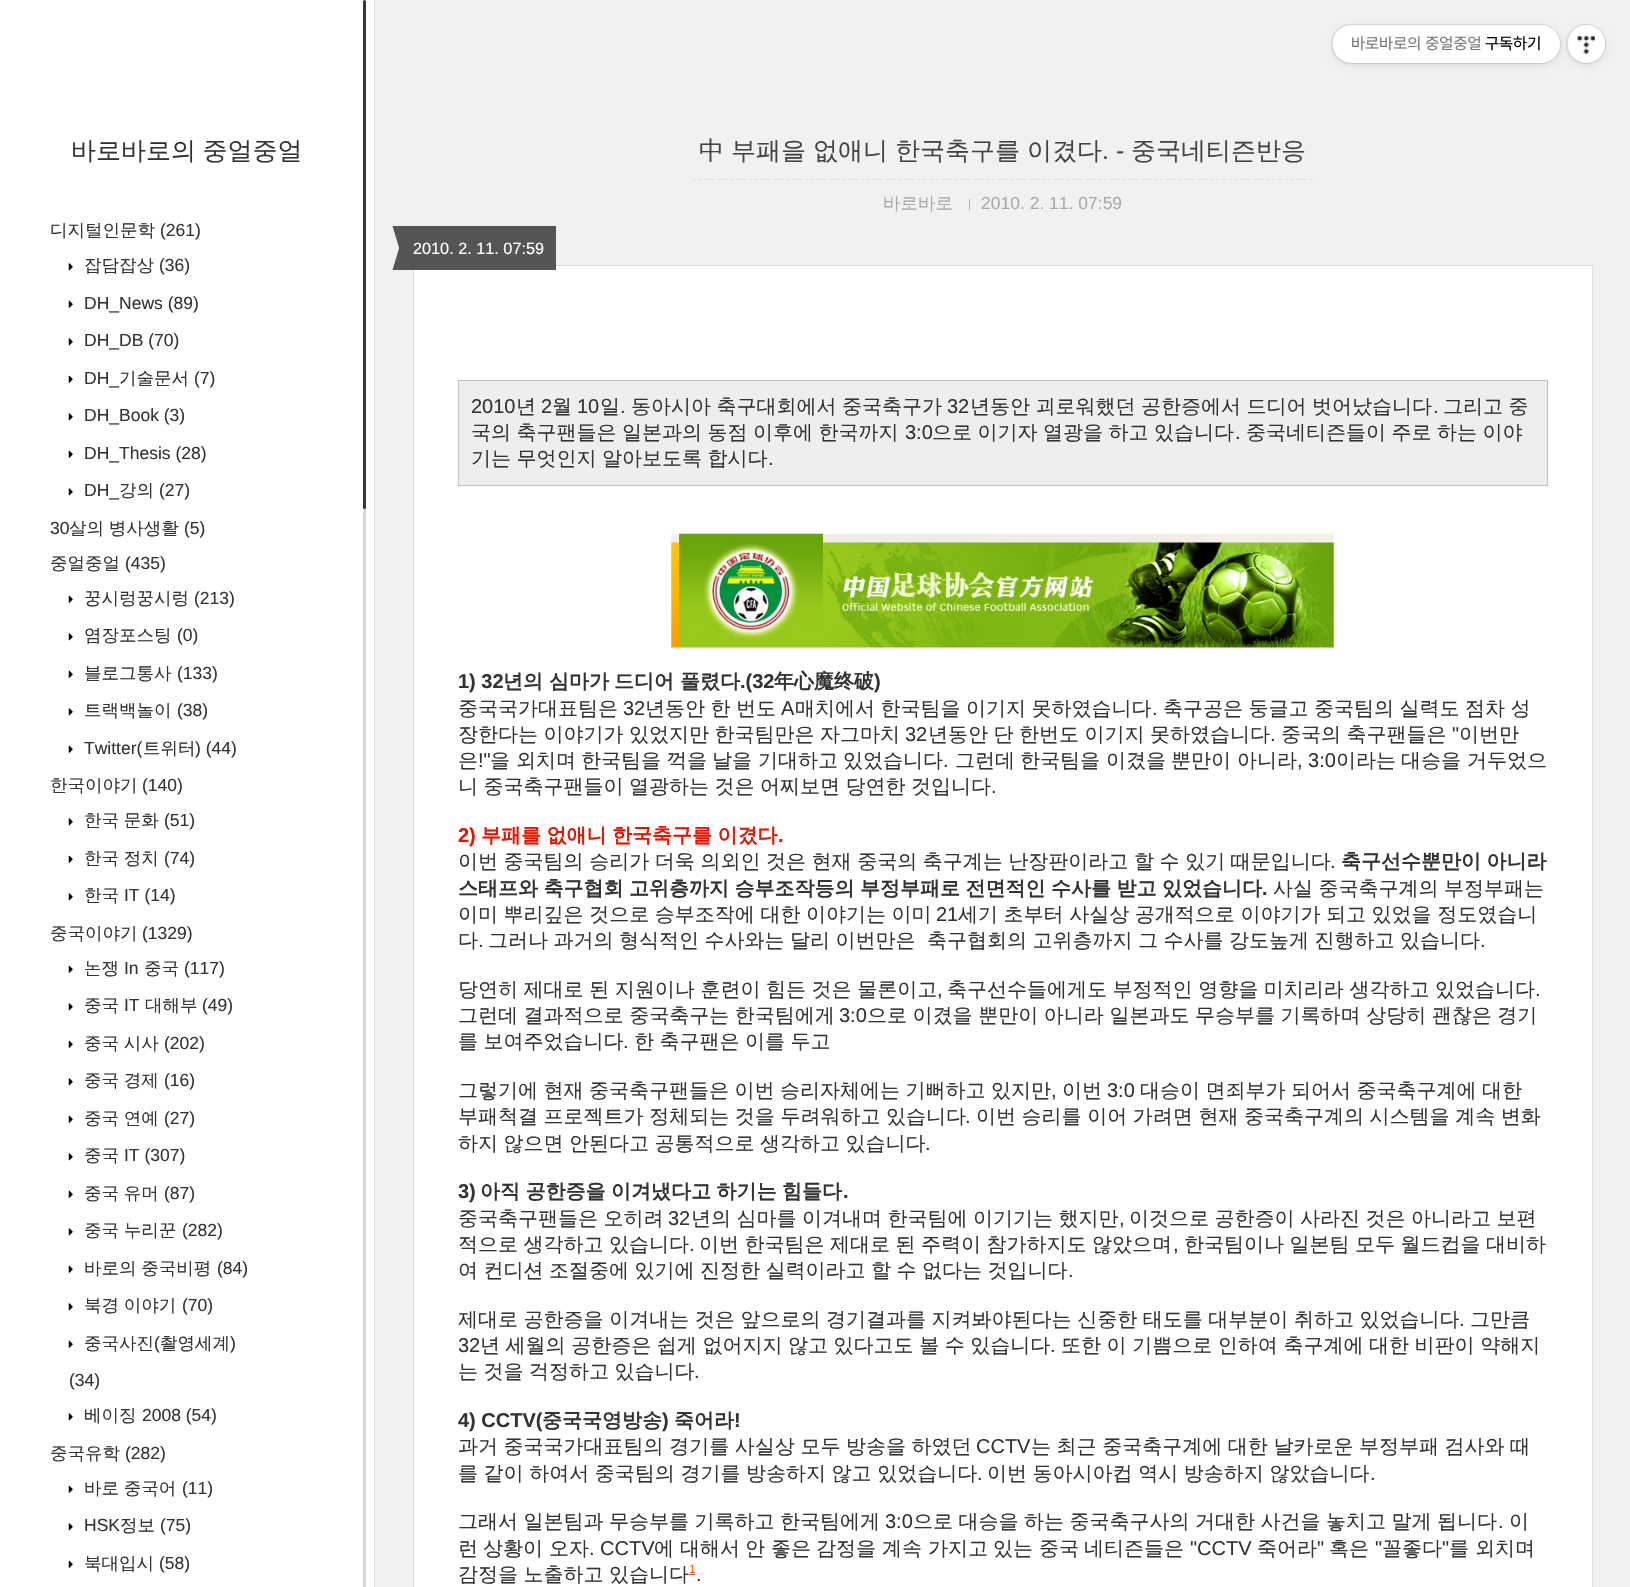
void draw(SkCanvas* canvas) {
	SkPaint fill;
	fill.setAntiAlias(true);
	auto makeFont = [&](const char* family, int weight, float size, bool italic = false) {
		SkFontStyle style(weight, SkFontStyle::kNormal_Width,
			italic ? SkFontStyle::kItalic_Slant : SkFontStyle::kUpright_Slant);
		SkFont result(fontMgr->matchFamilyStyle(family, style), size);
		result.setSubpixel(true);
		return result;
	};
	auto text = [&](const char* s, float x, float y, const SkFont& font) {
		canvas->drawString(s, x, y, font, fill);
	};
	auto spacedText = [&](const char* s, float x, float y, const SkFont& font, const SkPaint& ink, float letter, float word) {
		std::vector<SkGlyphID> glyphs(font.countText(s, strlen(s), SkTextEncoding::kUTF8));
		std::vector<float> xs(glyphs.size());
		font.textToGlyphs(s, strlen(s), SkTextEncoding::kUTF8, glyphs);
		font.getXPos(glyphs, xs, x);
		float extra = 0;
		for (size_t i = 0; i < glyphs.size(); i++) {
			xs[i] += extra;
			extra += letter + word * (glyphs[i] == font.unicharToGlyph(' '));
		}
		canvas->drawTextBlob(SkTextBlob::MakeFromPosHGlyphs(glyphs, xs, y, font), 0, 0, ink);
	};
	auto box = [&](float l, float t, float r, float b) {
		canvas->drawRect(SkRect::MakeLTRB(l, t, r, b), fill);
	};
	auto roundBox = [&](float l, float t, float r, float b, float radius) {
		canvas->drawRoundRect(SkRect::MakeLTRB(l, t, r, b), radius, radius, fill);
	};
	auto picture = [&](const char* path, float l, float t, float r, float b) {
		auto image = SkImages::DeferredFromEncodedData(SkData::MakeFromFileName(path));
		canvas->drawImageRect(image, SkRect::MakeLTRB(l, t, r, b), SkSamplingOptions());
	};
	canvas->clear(0xFFF1F1F1);
	fill.setColor(0x1A000000);
	fill.setMaskFilter(SkMaskFilter::MakeBlur(kNormal_SkBlurStyle, 3));
	canvas->drawRoundRect(SkRect::MakeLTRB(1568, 28, 1605, 65), 18.5f, 18.5f, fill);
	fill.setMaskFilter(nullptr);
	fill.setStyle(SkPaint::kStroke_Style);
	fill.setStrokeWidth(1);
	canvas->drawCircle(1586, 44, 19.5f, fill);
	fill.setStyle(SkPaint::kFill_Style);
	fill.setColor(0xFFFFFFFF);
	roundBox(1568, 25, 1605, 63, 18.5f);
	fill.setColor(0x1A000000);
	fill.setMaskFilter(SkMaskFilter::MakeBlur(kNormal_SkBlurStyle, 3));
	canvas->drawRoundRect(SkRect::MakeLTRB(1333, 28, 1560, 65), 18.5f, 18.5f, fill);
	fill.setMaskFilter(nullptr);
	fill.setStyle(SkPaint::kStroke_Style);
	canvas->drawRoundRect(SkRect::MakeLTRB(1331.5f, 24.5f, 1560.5f, 63.5f), 19.5f, 19.5f, fill);
	fill.setStyle(SkPaint::kFill_Style);
	fill.setColor(0xFFFFFFFF);
	roundBox(1333, 25, 1560, 63, 19);
	picture("image0.png", 1577, 35, 1595, 54);
	box(0, 0, 374, 1587);
	fill.setColor(0xFFDDDDDD);
	box(374, 0, 375, 1587);
	picture("image1.png", 68, 263, 73, 271);
	picture("image2.png", 68, 300, 73, 308);
	picture("image1.png", 68, 338, 73, 346);
	picture("image2.png", 68, 375, 73, 383);
	picture("image1.png", 68, 413, 73, 421);
	picture("image2.png", 68, 450, 73, 458);
	picture("image1.png", 68, 488, 73, 496);
	picture("image2.png", 68, 595, 73, 603);
	picture("image1.png", 68, 633, 73, 641);
	picture("image2.png", 68, 670, 73, 678);
	picture("image1.png", 68, 708, 73, 716);
	picture("image2.png", 68, 745, 73, 753);
	picture("image1.png", 68, 818, 73, 826);
	picture("image2.png", 68, 855, 73, 863);
	picture("image1.png", 68, 893, 73, 901);
	picture("image2.png", 68, 965, 73, 973);
	picture("image1.png", 68, 1003, 73, 1011);
	picture("image2.png", 68, 1040, 73, 1048);
	picture("image1.png", 68, 1078, 73, 1086);
	picture("image2.png", 68, 1115, 73, 1123);
	picture("image1.png", 68, 1153, 73, 1161);
	picture("image2.png", 68, 1190, 73, 1198);
	picture("image1.png", 68, 1228, 73, 1236);
	picture("image2.png", 68, 1265, 73, 1273);
	picture("image1.png", 68, 1303, 73, 1311);
	picture("image2.png", 68, 1340, 73, 1348);
	picture("image1.png", 68, 1413, 73, 1421);
	picture("image2.png", 68, 1485, 73, 1493);
	picture("image1.png", 68, 1523, 73, 1531);
	picture("image2.png", 68, 1560, 73, 1568);
	fill.setColor(0xFFD9D9D9);
	roundBox(363, 0, 366, 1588, 1.5f);
	fill.setColor(0xBF000000);
	roundBox(363, 0, 366, 509, 1.5f);
	fill.setStyle(SkPaint::kStroke_Style);
	fill.setStrokeWidth(1.2f);
	fill.setColor(0xFFDDDDDD);
	fill.setPathEffect(SkDashPathEffect::Make({{3.75f, 2.48f}}, 0));
	canvas->drawPath(SkPathBuilder().moveTo(692.5f, 179.5f).lineTo(1312.5f, 179.5f).detach(), fill);
	fill.setPathEffect(nullptr);
	fill.setStyle(SkPaint::kFill_Style);
	fill.setColor(0xFFB3B3B3);
	box(969, 199, 970, 210);
	fill.setColor(0xFFFFFFFF);
	canvas->drawRect(SkRect::MakeLTRB(413.5f, 265.5f, 1592.5f, 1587.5f), fill);
	fill.setStyle(SkPaint::kStroke_Style);
	fill.setStrokeWidth(1);
	fill.setColor(0xFFDDDDDD);
	canvas->drawRect(SkRect::MakeLTRB(413.5f, 265.5f, 1592.5f, 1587.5f), fill);
	fill.setStyle(SkPaint::kFill_Style);
	fill.setColor(0xFF555555);
	box(400, 226, 556, 270);
	canvas->drawPath(SkPathBuilder().moveTo(392.5f, 226).lineTo(400, 226).lineTo(400, 251).close().detach(), fill);
	canvas->drawPath(SkPathBuilder().moveTo(400, 270).lineTo(392.5f, 270).lineTo(400, 245).close().detach(), fill);
	fill.setColor(0xFFEEEEEE);
	canvas->drawRect(SkRect::MakeLTRB(458.5f, 380.5f, 1547.5f, 485.5f), fill);
	fill.setStyle(SkPaint::kStroke_Style);
	fill.setColor(0xFFC1C1C1);
	canvas->drawRect(SkRect::MakeLTRB(458.5f, 380.5f, 1547.5f, 485.5f), fill);
	picture("image3.png", 671, 533, 1334, 648);
	fill.setStyle(SkPaint::kFill_Style);
	fill.setColor(0xFFF9650D);
	box(689, 1574, 695, 1575);
	auto font1 = makeFont("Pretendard", 400, 16.25f);
	fill.setColor(0xFF777777);
	text("바로바로의 중얼중얼", 1351, 49, font1);
	fill.setColor(0xFF000000);
	text("구독하기", 1485, 49, font1);
	auto font2 = makeFont("WenQuanYi Zen Hei", 500, 25);
	fill.setColor(0xFF333333);
	spacedText("바로바로의 중얼중얼", 71, 159, font2, fill, 0, -1);
	auto font3 = makeFont("WenQuanYi Zen Hei", 500, 17.5f);
	text("디지털인문학", 50, 236, font3);
	auto font4 = makeFont("Liberation Sans", 400, 17.5f);
	text("(261)", 160, 236, font4);
	text("잡담잡상", 84, 271, font3);
	text("(36)", 159, 271, font4);
	text("DH_News (89)", 84, 309, font4);
	text("DH_DB (70)", 84, 346, font4);
	text("DH_", 84, 384, font4);
	text("기술문서", 119, 384, font3);
	text("(7)", 194, 384, font4);
	text("DH_Book (3)", 84, 421, font4);
	text("DH_Thesis (28)", 84, 459, font4);
	text("DH_", 84, 496, font4);
	text("강의", 119, 496, font3);
	text("(27)", 159, 496, font4);
	text("30", 50, 534, font4);
	spacedText("살의 병사생활", 69, 534, font3, fill, 0, -0.5f);
	text("(5)", 184, 534, font4);
	text("중얼중얼", 50, 569, font3);
	text("(435)", 125, 569, font4);
	text("꿍시렁꿍시렁", 84, 604, font3);
	text("(213)", 194, 604, font4);
	text("염장포스팅", 84, 641, font3);
	text("(0)", 177, 641, font4);
	text("블로그통사", 84, 679, font3);
	text("(133)", 177, 679, font4);
	text("트랙백놀이", 84, 716, font3);
	text("(38)", 177, 716, font4);
	text("Twitter(", 84, 754, font4);
	text("트위터", 143, 754, font3);
	text(") (44)", 195, 754, font4);
	text("한국이야기", 50, 791, font3);
	text("(140)", 142, 791, font4);
	spacedText("한국 문화", 84, 826, font3, fill, 0, -0.5f);
	text("(51)", 164, 826, font4);
	spacedText("한국 정치", 84, 864, font3, fill, 0, -0.5f);
	text("(74)", 164, 864, font4);
	text("한국", 84, 901, font3);
	text("IT (14)", 124, 901, font4);
	text("중국이야기", 50, 939, font3);
	text("(1329)", 142, 939, font4);
	text("논쟁", 84, 974, font3);
	text("In", 124, 974, font4);
	text("중국", 144, 974, font3);
	text("(117)", 184, 974, font4);
	text("중국", 84, 1011, font3);
	text("IT", 124, 1011, font4);
	text("대해부", 145, 1011, font3);
	text("(49)", 202, 1011, font4);
	spacedText("중국 시사", 84, 1049, font3, fill, 0, -0.5f);
	text("(202)", 164, 1049, font4);
	spacedText("중국 경제", 84, 1086, font3, fill, 0, -0.5f);
	text("(16)", 164, 1086, font4);
	spacedText("중국 연예", 84, 1124, font3, fill, 0, -0.5f);
	text("(27)", 164, 1124, font4);
	text("중국", 84, 1161, font3);
	text("IT (307)", 124, 1161, font4);
	spacedText("중국 유머", 84, 1199, font3, fill, 0, -0.5f);
	text("(87)", 164, 1199, font4);
	spacedText("중국 누리꾼", 84, 1236, font3, fill, 0, -0.5f);
	text("(282)", 182, 1236, font4);
	spacedText("바로의 중국비평", 84, 1274, font3, fill, 0, -0.5f);
	text("(84)", 217, 1274, font4);
	spacedText("북경 이야기", 84, 1311, font3, fill, 0, -0.5f);
	text("(70)", 182, 1311, font4);
	text("중국사진", 84, 1349, font3);
	text("(", 154, 1349, font4);
	text("촬영세계", 160, 1349, font3);
	text(")", 230, 1349, font4);
	text("(34)", 69, 1386, font4);
	text("베이징", 84, 1421, font3);
	text("2008 (54)", 142, 1421, font4);
	text("중국유학", 50, 1459, font3);
	text("(282)", 125, 1459, font4);
	spacedText("바로 중국어", 84, 1494, font3, fill, 0, -0.5f);
	text("(11)", 182, 1494, font4);
	text("HSK", 84, 1531, font4);
	text("정보", 120, 1531, font3);
	text("(75)", 160, 1531, font4);
	text("북대입시", 84, 1569, font3);
	text("(58)", 159, 1569, font4);
	fill.setColor(0xFF444444);
	text("中", 699, 159, font2);
	text("부패을", 731, 159, font2);
	text("없애니", 813, 159, font2);
	text("한국축구를", 895, 159, font2);
	text("이겼다", 1027, 159, font2);
	auto font5 = makeFont("Liberation Sans", 400, 25);
	text(". -", 1102, 159, font5);
	text("중국네티즌반응", 1131, 159, font2);
	fill.setColor(0xFFAAAAAA);
	text("바로바로", 883, 209, font3);
	text("2010. 2. 11. 07:59", 981, 209, font4);
	auto font6 = makeFont("Liberation Sans", 400, 16.25f);
	fill.setColor(0xFFFFFFFF);
	text("2010. 2. 11. 07:59", 413, 254, font6);
	auto font7 = makeFont("Liberation Sans", 400, 20);
	fill.setColor(0xFF333333);
	text("2010", 471, 413, font7);
	auto font8 = makeFont("WenQuanYi Zen Hei", 500, 20);
	text("년", 516, 413, font8);
	text("2", 541, 413, font7);
	text("월", 552, 413, font8);
	text("10", 577, 413, font7);
	text("일", 600, 413, font8);
	text(".", 620, 413, font7);
	spacedText("동아시아 축구대회에서 중국축구가", 631, 413, font8, fill, 0, -0.5f);
	text("32", 947, 413, font7);
	spacedText("년동안 괴로워했던 공한증에서 드디어 벗어났습니다", 970, 413, font8, fill, 0, -0.5f);
	text(".", 1433, 413, font7);
	spacedText("그리고 중", 1443, 413, font8, fill, 0, -0.5f);
	spacedText("국의 축구팬들은 일본과의 동점 이후에 한국까지", 471, 439, font8, fill, 0, -0.5f);
	text("3:0", 905, 439, font7);
	spacedText("으로 이기자 열광을 하고 있습니다", 932, 439, font8, fill, 0, -0.5f);
	text(".", 1235, 439, font7);
	spacedText("중국네티즌들이 주로 하는 이야", 1246, 439, font8, fill, 0, -0.5f);
	spacedText("기는 무엇인지 알아보도록 합시다", 471, 465, font8, fill, 0, -0.5f);
	text(".", 768, 465, font7);
	auto font9 = makeFont("Liberation Sans", 700, 20);
	text("1) 32", 458, 688, font9);
	auto font10 = makeFont("WenQuanYi Zen Hei", 700, 20);
	text("년의", 503, 688, font10);
	text("심마가", 549, 688, font10);
	text("드디어", 614, 688, font10);
	text("풀렸다", 680, 688, font10);
	text(".(32", 740, 688, font9);
	text("年心魔终破", 774, 688, font10);
	text(")", 874, 688, font9);
	text("중국국가대표팀은", 458, 715, font8);
	text("32", 623, 715, font7);
	spacedText("년동안 한 번도", 645, 715, font8, fill, 0, -0.5f);
	text("A", 781, 715, font7);
	spacedText("매치에서 한국팀을 이기지 못하였습니다", 795, 715, font8, fill, 0, -0.5f);
	text(".", 1152, 715, font7);
	spacedText("축구공은 둥글고 중국팀의 실력도 점차 성", 1163, 715, font8, fill, 0, -0.5f);
	spacedText("장한다는 이야기가 있었지만 한국팀만은 자그마치", 458, 741, font8, fill, 0, -0.5f);
	text("32", 905, 741, font7);
	spacedText("년동안 단 한번도 이기지 못하였습니다", 928, 741, font8, fill, 0, -0.5f);
	spacedText("중국의 축구팬들은", 1281, 741, font8, fill, 0, -0.5f);
	text("\"", 1452, 741, font7);
	text("이번만", 1459, 741, font8);
	text(".", 1270, 741, font7);
	text("은", 458, 767, font8);
	text("!\"", 478, 767, font7);
	text("을", 490, 767, font8);
	text("외치며", 516, 767, font8);
	text("한국팀을", 581, 767, font8);
	text("꺽을", 667, 767, font8);
	text("날을", 712, 767, font8);
	text("기대하고", 758, 767, font8);
	text("있었습니다", 843, 767, font8);
	text(".", 943, 767, font7);
	text("그런데", 955, 767, font8);
	text("한국팀을", 1020, 767, font8);
	text("이겼을", 1106, 767, font8);
	text("뿐만이", 1171, 767, font8);
	text("아니라", 1237, 767, font8);
	text(", 3:0", 1297, 767, font7);
	text("이라는", 1336, 767, font8);
	text("대승을", 1401, 767, font8);
	text("거두었으", 1467, 767, font8);
	spacedText("니 중국축구팬들이 열광하는 것은 어찌보면 당연한 것입니다", 458, 793, font8, fill, 0, -0.5f);
	text(".", 991, 793, font7);
	fill.setColor(0xFFE31600);
	text("2)", 458, 842, font9);
	spacedText("부패를 없애니 한국축구를 이겼다", 481, 842, font10, fill, 0, -0.5f);
	text(".", 778, 842, font9);
	fill.setColor(0xFF333333);
	spacedText("이번 중국팀의 승리가 더욱 의외인 것은 현재 중국의 축구계는 난장판이라고 할 수 있기 때문입니다", 458, 868, font8, fill, 0, -0.4f);
	text(".", 1330, 868, font7);
	spacedText("축구선수뿐만이 아니라", 1341, 868, font10, fill, 0, -0.5f);
	spacedText("스태프와 축구협회 고위층까지 승부조작등의 부정부패로 전면적인 수사를 받고 있었습니다", 458, 895, font10, fill, 0, -0.5f);
	text(".", 1262, 895, font9);
	spacedText("사실 중국축구계의 부정부패는", 1273, 895, font8, fill, 0, -0.5f);
	spacedText("이미 뿌리깊은 것으로 승부조작에 대한 이야기는 이미", 458, 921, font8, fill, 0, -0.4f);
	text("21", 936, 921, font7);
	spacedText("세기 초부터 사실상 공개적으로 이야기가 되고 있었을 정도였습니", 958, 921, font8, fill, 0, -0.4f);
	text("다", 458, 947, font8);
	text(".", 478, 947, font7);
	spacedText("그러나 과거의 형식적인 수사와는 달리 이번만은", 488, 947, font8, fill, 0, -0.5f);
	spacedText("축구협회의 고위층까지 그 수사를 강도높게 진행하고 있습니다", 927, 947, font8, fill, 0, -0.5f);
	text(".", 1480, 947, font7);
	spacedText("당연히 제대로 된 지원이나 훈련이 힘든 것은 물론이고", 458, 996, font8, fill, 0, -0.4f);
	text(",", 937, 996, font7);
	spacedText("축구선수들에게도 부정적인 영향을 미치리라 생각하고 있었습니다", 947, 996, font8, fill, 0, -0.4f);
	text(".", 1535, 996, font7);
	spacedText("그런데 결과적으로 중국축구는 한국팀에게", 458, 1022, font8, fill, 0, -0.4f);
	text("3:0", 839, 1022, font7);
	spacedText("으로 이겼을 뿐만이 아니라 일본과도 무승부를 기록하며 상당히 괜찮은 경기", 867, 1022, font8, fill, 0, -0.4f);
	spacedText("를 보여주었습니다", 458, 1048, font8, fill, 0, -0.5f);
	text(".", 623, 1048, font7);
	spacedText("한 축구팬은 이를 두고", 634, 1048, font8, fill, 0, -0.5f);
	spacedText("그렇기에 현재 중국축구팬들은 이번 승리자체에는 기뻐하고 있지만", 458, 1097, font8, fill, 0, -0.5f);
	text(",", 1051, 1097, font7);
	text("이번", 1062, 1097, font8);
	text("3:0", 1107, 1097, font7);
	spacedText("대승이 면죄부가 되어서 중국축구계에 대한", 1140, 1097, font8, fill, 0, -0.5f);
	spacedText("부패척결 프로젝트가 정체되는 것을 두려워하고 있습니다", 458, 1123, font8, fill, 0, -0.4f);
	text(".", 965, 1123, font7);
	spacedText("이번 승리를 이어 가려면 현재 중국축구계의 시스템을 계속 변화", 976, 1123, font8, fill, 0, -0.4f);
	spacedText("하지 않으면 안된다고 공통적으로 생각하고 있습니다", 458, 1150, font8, fill, 0, -0.5f);
	text(".", 925, 1150, font7);
	text("3)", 458, 1198, font9);
	spacedText("아직 공한증을 이겨냈다고 하기는 힘들다", 480, 1198, font10, fill, 0, -0.5f);
	text(".", 843, 1198, font9);
	spacedText("중국축구팬들은 오히려", 458, 1225, font8, fill, 0, -0.5f);
	text("32", 668, 1225, font7);
	spacedText("년의 심마를 이겨내며 한국팀에 이기기는 했지만", 691, 1225, font8, fill, 0, -0.5f);
	text(",", 1119, 1225, font7);
	spacedText("이것으로 공한증이 사라진 것은 아니라고 보편", 1129, 1225, font8, fill, 0, -0.5f);
	spacedText("적으로 생각하고 있습니다", 458, 1251, font8, fill, 0, -0.5f);
	text(".", 689, 1251, font7);
	spacedText("이번 한국팀은 제대로 된 주력이 참가하지도 않았으며", 699, 1251, font8, fill, 0, -0.5f);
	text(",", 1173, 1251, font7);
	spacedText("한국팀이나 일본팀 모두 월드컵을 대비하", 1184, 1251, font8, fill, 0, -0.5f);
	spacedText("여 컨디션 조절중에 있기에 진정한 실력이라고 할 수 없다는 것입니다", 458, 1277, font8, fill, 0, -0.5f);
	text(".", 1068, 1277, font7);
	spacedText("제대로 공한증을 이겨내는 것은 앞으로의 경기결과를 지켜봐야된다는 신중한 태도를 대부분이 취하고 있었습니다", 458, 1326, font8, fill, 0, -0.4f);
	text(".", 1459, 1326, font7);
	text("그만큼", 1470, 1326, font8);
	text("32", 458, 1352, font7);
	spacedText("년 세월의 공한증은 쉽게 없어지지 않고 있다고도 볼 수 있습니다", 480, 1352, font8, fill, 0, -0.4f);
	text(".", 1050, 1352, font7);
	spacedText("또한 이 기쁨으로 인하여 축구계에 대한 비판이 약해지", 1061, 1352, font8, fill, 0, -0.4f);
	spacedText("는 것을 걱정하고 있습니다", 458, 1378, font8, fill, 0, -0.5f);
	text(".", 694, 1378, font7);
	text("4) CCTV(", 458, 1427, font9);
	text("중국국영방송", 542, 1427, font10);
	text(")", 662, 1427, font9);
	text("죽어라", 674, 1427, font10);
	text("!", 734, 1427, font9);
	spacedText("과거 중국국가대표팀의 경기를 사실상 모두 방송을 하였던", 458, 1453, font8, fill, 0, -0.4f);
	text("CCTV", 976, 1453, font7);
	spacedText("는 최근 중국축구계에 대한 날카로운 부정부패 검사와 때", 1031, 1453, font8, fill, 0, -0.4f);
	spacedText("를 같이 하여서 중국팀의 경기를 방송하지 않고 있었습니다", 458, 1480, font8, fill, 0, -0.4f);
	text(".", 977, 1480, font7);
	spacedText("이번 동아시아컵 역시 방송하지 않았습니다", 987, 1480, font8, fill, 0, -0.4f);
	text(".", 1370, 1480, font7);
	spacedText("그래서 일본팀과 무승부를 기록하고 한국팀에게", 458, 1528, font8, fill, 0, -0.5f);
	text("3:0", 885, 1528, font7);
	spacedText("으로 대승을 하는 중국축구사의 거대한 사건을 놓치고 말게 됩니다", 913, 1528, font8, fill, 0, -0.5f);
	text(".", 1498, 1528, font7);
	text("이", 1509, 1528, font8);
	text("런", 458, 1555, font8);
	text("상황이", 483, 1555, font8);
	text("오자", 549, 1555, font8);
	text(". CCTV", 589, 1555, font7);
	text("에", 654, 1555, font8);
	text("대해서", 680, 1555, font8);
	text("안", 745, 1555, font8);
	text("좋은", 771, 1555, font8);
	text("감정을", 816, 1555, font8);
	text("계속", 882, 1555, font8);
	text("가지고", 928, 1555, font8);
	text("있는", 993, 1555, font8);
	text("중국", 1039, 1555, font8);
	text("네티즌들은", 1084, 1555, font8);
	text("\"CCTV", 1190, 1555, font7);
	text("죽어라", 1257, 1555, font8);
	text("\"", 1317, 1555, font7);
	text("혹은", 1329, 1555, font8);
	text("\"", 1375, 1555, font7);
	text("꼴좋다", 1382, 1555, font8);
	text("\"", 1442, 1555, font7);
	text("를", 1449, 1555, font8);
	text("외치며", 1475, 1555, font8);
	spacedText("감정을 노출하고 있습니다", 458, 1581, font8, fill, 0, -0.5f);
	auto font11 = makeFont("Liberation Sans", 400, 12);
	fill.setColor(0xFFF9650D);
	text("1", 689, 1573, font11);
	fill.setColor(0xFF333333);
	text(".", 696, 1581, font7);
}
